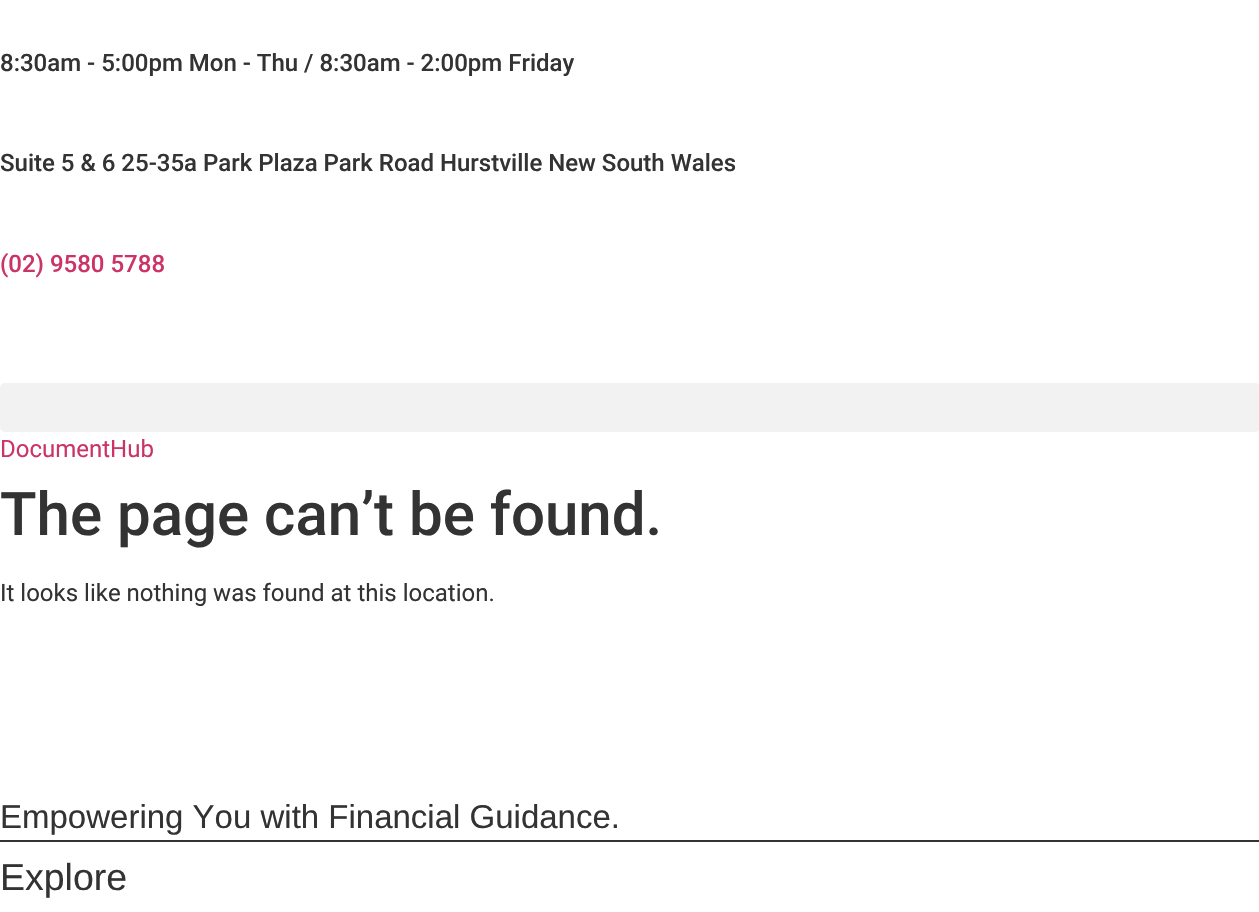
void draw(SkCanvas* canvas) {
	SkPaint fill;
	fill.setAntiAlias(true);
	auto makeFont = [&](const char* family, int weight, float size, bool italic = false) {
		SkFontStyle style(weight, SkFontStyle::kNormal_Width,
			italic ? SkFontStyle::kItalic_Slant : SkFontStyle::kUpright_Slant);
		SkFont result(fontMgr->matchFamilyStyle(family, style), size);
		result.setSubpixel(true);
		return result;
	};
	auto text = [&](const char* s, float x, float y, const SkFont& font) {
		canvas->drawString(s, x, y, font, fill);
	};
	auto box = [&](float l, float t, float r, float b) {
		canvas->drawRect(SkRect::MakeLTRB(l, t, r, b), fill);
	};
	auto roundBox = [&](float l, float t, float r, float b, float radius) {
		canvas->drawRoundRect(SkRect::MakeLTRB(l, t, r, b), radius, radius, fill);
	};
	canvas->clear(0xFFFFFFFF);
	fill.setColor(0xFFF2F2F2);
	roundBox(0, 383, 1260, 432, 5);
	fill.setColor(0xFF333333);
	box(0, 840, 1259, 842);
	auto font1 = makeFont("Roboto", 500, 24);
	text("8:30am - 5:00pm Mon - Thu / 8:30am - 2:00pm Friday", 0, 71, font1);
	text("Suite 5 & 6 25-35a Park Plaza Park Road Hurstville New South Wales", 0, 171, font1);
	fill.setColor(0xFFCC3366);
	text("(02) 9580 5788", 0, 272, font1);
	auto font2 = makeFont("Roboto", 400, 24);
	text("DocumentHub", 0, 457, font2);
	auto font3 = makeFont("Roboto", 500, 60);
	fill.setColor(0xFF333333);
	text("The page can’t be found.", 0, 535, font3);
	text("It looks like nothing was found at this location.", 0, 601, font2);
	auto font4 = makeFont("Liberation Sans", 400, 33);
	text("Empowering You with Financial Guidance.", 0, 828, font4);
	auto font5 = makeFont("Liberation Sans", 400, 37.5f);
	text("Explore", 0, 890, font5);
}
